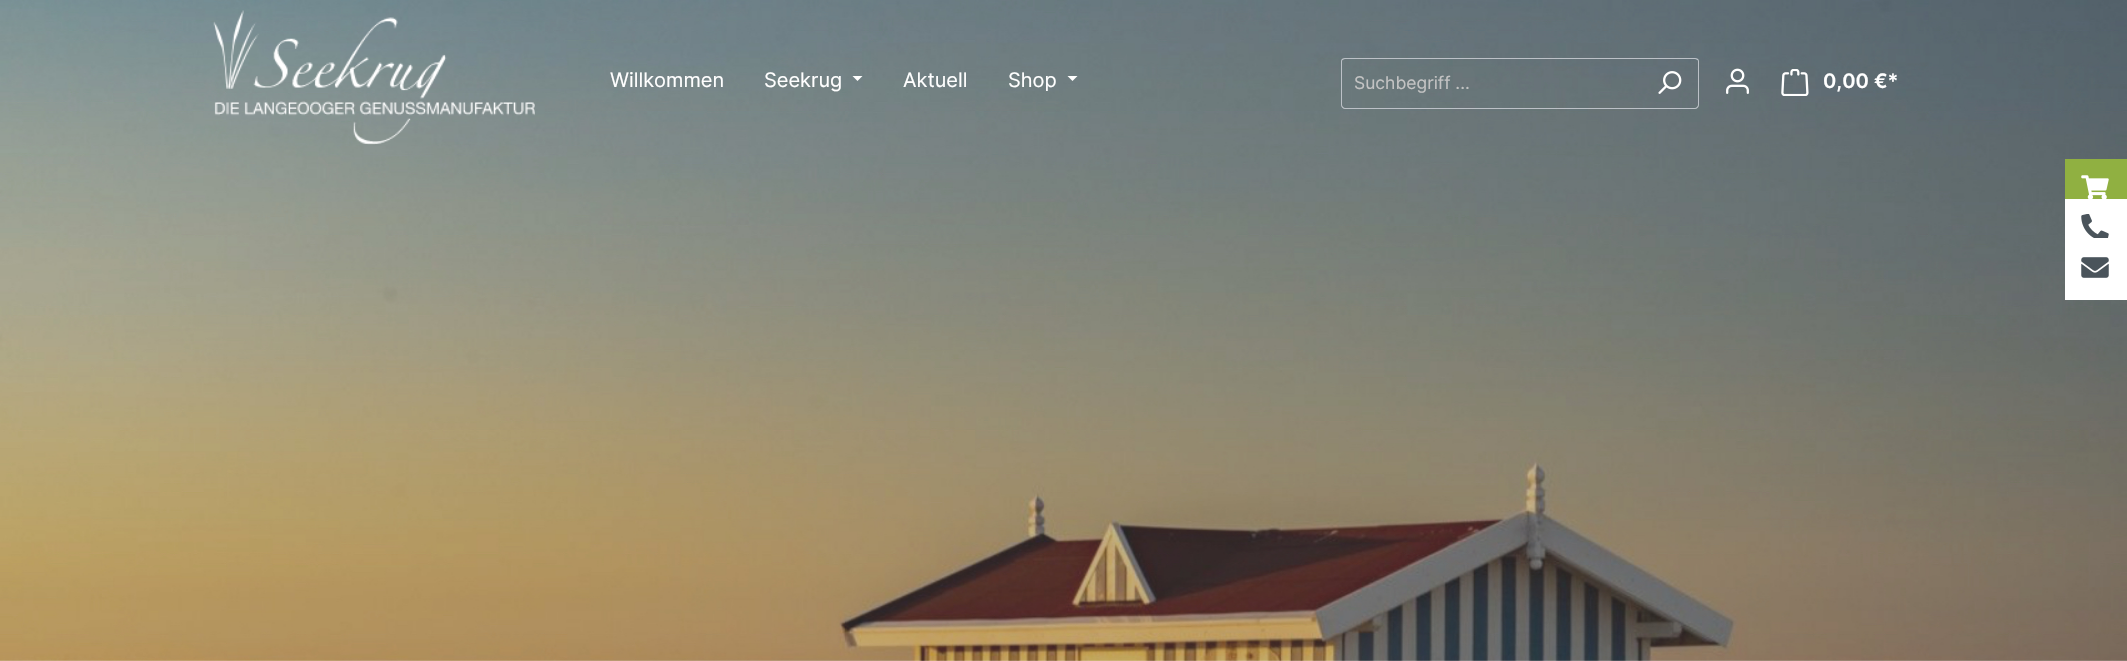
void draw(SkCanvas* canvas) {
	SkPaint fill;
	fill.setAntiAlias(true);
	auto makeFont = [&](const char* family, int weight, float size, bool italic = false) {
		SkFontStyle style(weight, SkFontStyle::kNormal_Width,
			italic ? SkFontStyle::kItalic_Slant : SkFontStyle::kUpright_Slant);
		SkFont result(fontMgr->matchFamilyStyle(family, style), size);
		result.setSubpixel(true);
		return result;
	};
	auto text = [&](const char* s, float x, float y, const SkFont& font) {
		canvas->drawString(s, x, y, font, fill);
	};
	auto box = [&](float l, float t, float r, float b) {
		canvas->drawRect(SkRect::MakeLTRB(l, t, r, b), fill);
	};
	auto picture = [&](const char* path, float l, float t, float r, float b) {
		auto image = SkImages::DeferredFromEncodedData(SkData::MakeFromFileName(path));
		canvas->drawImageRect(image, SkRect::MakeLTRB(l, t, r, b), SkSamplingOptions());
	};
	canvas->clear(0xFFFFFFFF);
	picture("image0.png", 0, 0, 2127, 661);
	picture("image1.png", 213, 10, 535, 145);
	fill.setColor(0xFFFFFFFF);
	canvas->drawPath(SkPathBuilder().moveTo(852.5f, 76).lineTo(862.5f, 76).lineTo(857.5f, 81).close().detach(), fill);
	canvas->drawPath(SkPathBuilder().moveTo(1067.5f, 76).lineTo(1077.5f, 76).lineTo(1072.5f, 81).close().detach(), fill);
	fill.setColor(0xFFBCC1C7);
	canvas->drawPath(SkPathBuilder(SkPathFillType::kEvenOdd).moveTo(1345, 58).lineTo(1641, 58).lineTo(1641, 109).lineTo(1345, 109).cubicTo(1343, 109, 1341, 107, 1341, 105).lineTo(1341, 61).cubicTo(1341, 59, 1343, 58, 1345, 58).close().moveTo(1345, 59).lineTo(1641, 59).lineTo(1641, 108).lineTo(1345, 108).cubicTo(1344, 108, 1342, 106, 1342, 105).lineTo(1342, 61).cubicTo(1342, 60, 1344, 59, 1345, 59).close().detach(), fill);
	canvas->drawPath(SkPathBuilder(SkPathFillType::kEvenOdd).moveTo(1640, 58).lineTo(1695, 58).cubicTo(1697, 58, 1699, 59, 1699, 61).lineTo(1699, 105).cubicTo(1699, 107, 1697, 109, 1695, 109).lineTo(1640, 109).close().moveTo(1640, 59).lineTo(1695, 59).cubicTo(1696, 59, 1698, 60, 1698, 61).lineTo(1698, 105).cubicTo(1698, 106, 1696, 108, 1695, 108).lineTo(1640, 108).close().detach(), fill);
	picture("image2.png", 1658, 71, 1682, 94);
	picture("image3.png", 1726, 68, 1749, 94);
	picture("image4.png", 1781, 69, 1809, 96);
	fill.setColor(0xFF90B041);
	box(2065, 159, 2127, 199);
	picture("image5.png", 2081, 175, 2109, 199);
	fill.setColor(0xFFFFFFFF);
	box(2065, 199, 2127, 300);
	picture("image6.png", 2081, 214, 2109, 238);
	picture("image7.png", 2081, 257, 2109, 278);
	auto font1 = makeFont("Inter", 400, 20);
	text("Willkommen", 610, 87, font1);
	text("Seekrug", 764, 87, font1);
	text("Aktuell", 903, 87, font1);
	text("Shop", 1008, 87, font1);
	auto font2 = makeFont("Inter", 400, 17.5f);
	fill.setColor(0xFFC3C3C3);
	text("Suchbegriff ...", 1354, 89, font2);
	auto font3 = makeFont("Inter", 600, 20);
	fill.setColor(0xFFFFFFFF);
	text("0,00 €*", 1823, 88, font3);
}
